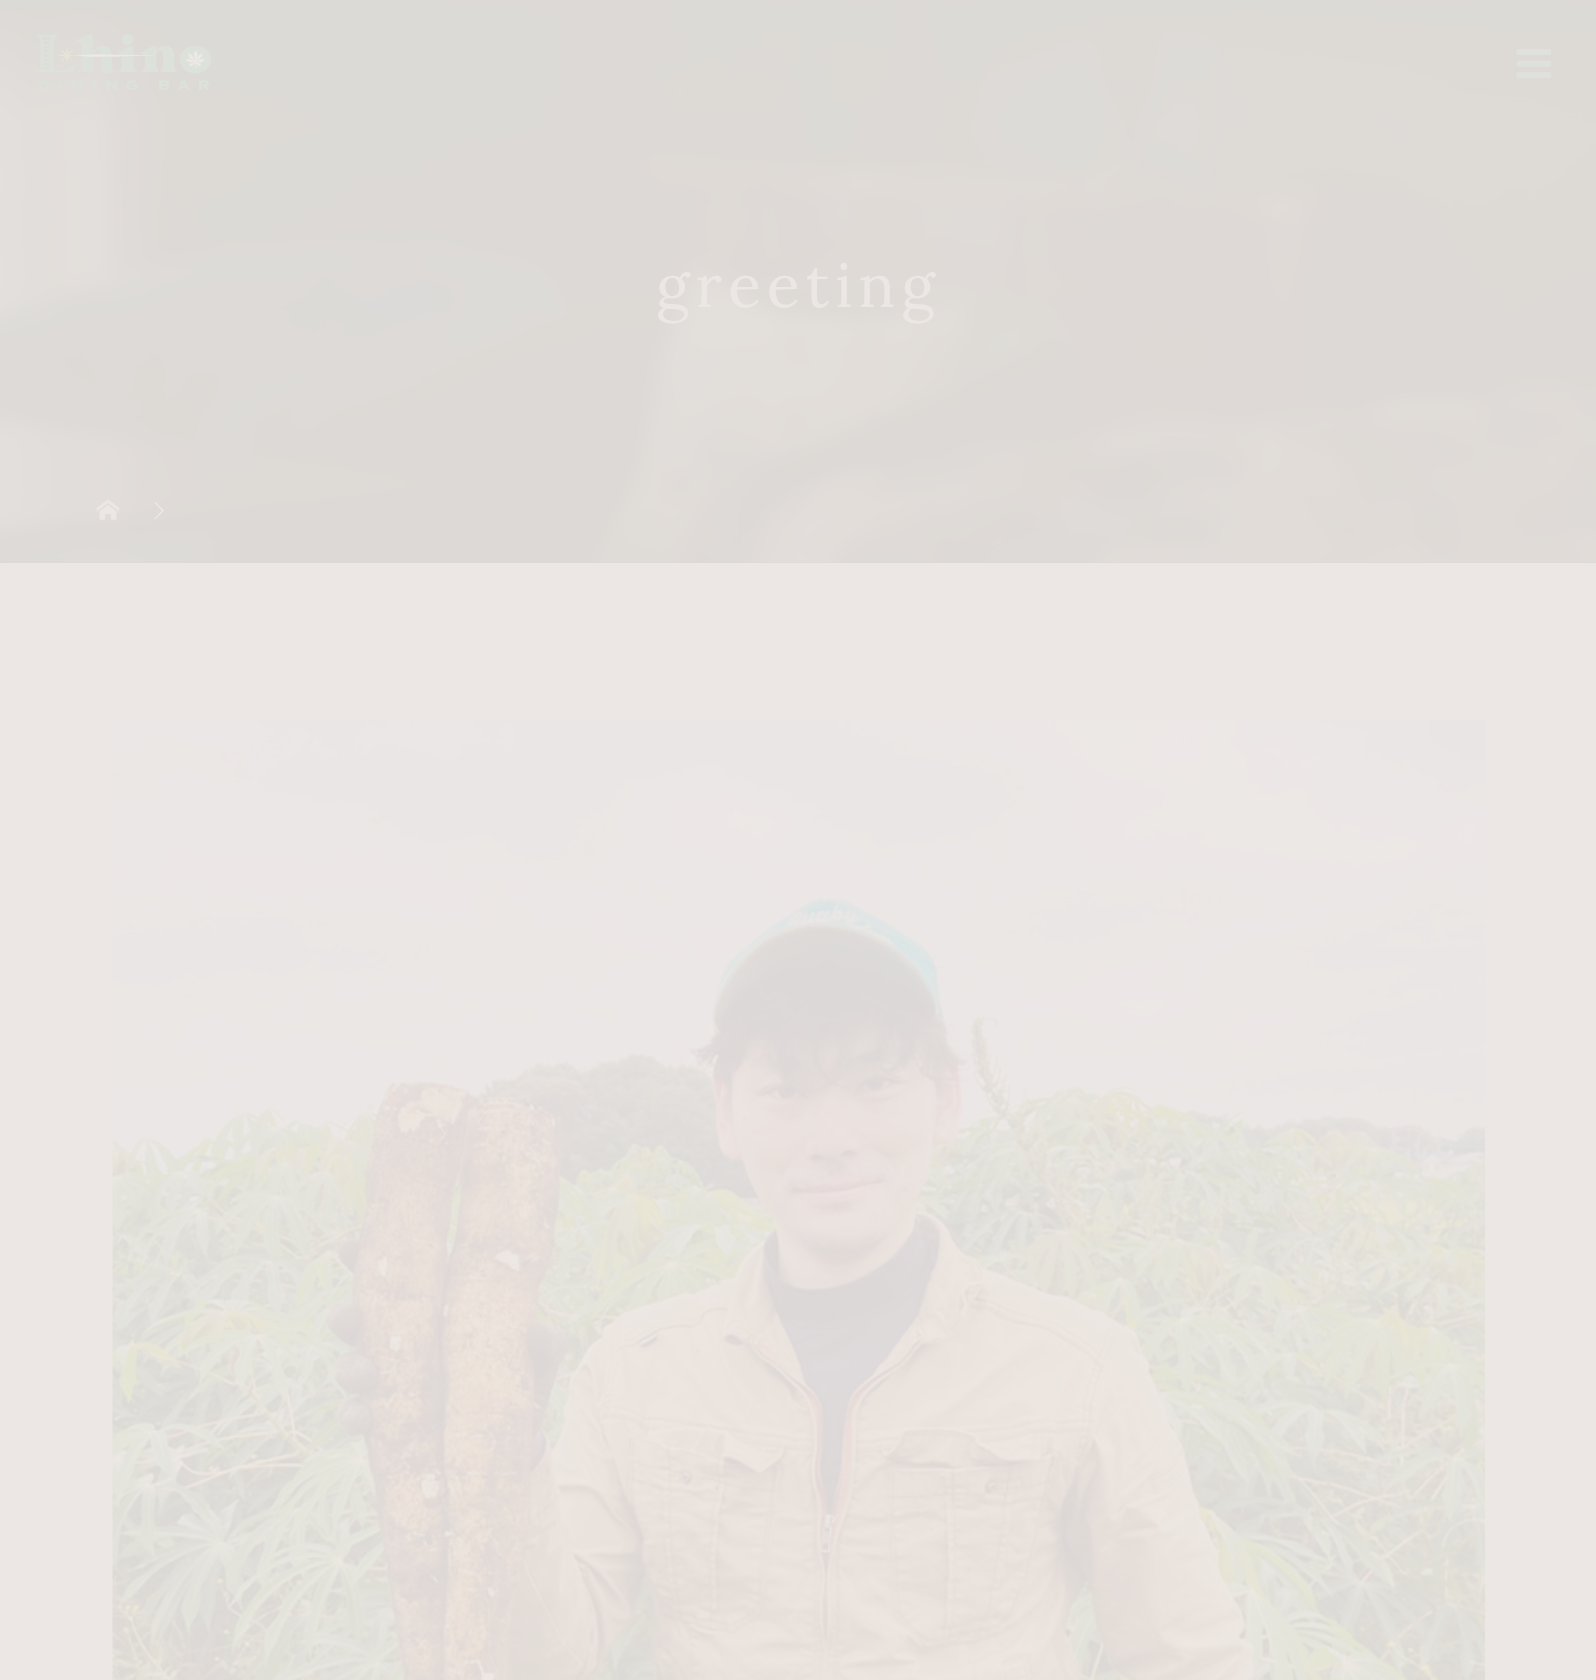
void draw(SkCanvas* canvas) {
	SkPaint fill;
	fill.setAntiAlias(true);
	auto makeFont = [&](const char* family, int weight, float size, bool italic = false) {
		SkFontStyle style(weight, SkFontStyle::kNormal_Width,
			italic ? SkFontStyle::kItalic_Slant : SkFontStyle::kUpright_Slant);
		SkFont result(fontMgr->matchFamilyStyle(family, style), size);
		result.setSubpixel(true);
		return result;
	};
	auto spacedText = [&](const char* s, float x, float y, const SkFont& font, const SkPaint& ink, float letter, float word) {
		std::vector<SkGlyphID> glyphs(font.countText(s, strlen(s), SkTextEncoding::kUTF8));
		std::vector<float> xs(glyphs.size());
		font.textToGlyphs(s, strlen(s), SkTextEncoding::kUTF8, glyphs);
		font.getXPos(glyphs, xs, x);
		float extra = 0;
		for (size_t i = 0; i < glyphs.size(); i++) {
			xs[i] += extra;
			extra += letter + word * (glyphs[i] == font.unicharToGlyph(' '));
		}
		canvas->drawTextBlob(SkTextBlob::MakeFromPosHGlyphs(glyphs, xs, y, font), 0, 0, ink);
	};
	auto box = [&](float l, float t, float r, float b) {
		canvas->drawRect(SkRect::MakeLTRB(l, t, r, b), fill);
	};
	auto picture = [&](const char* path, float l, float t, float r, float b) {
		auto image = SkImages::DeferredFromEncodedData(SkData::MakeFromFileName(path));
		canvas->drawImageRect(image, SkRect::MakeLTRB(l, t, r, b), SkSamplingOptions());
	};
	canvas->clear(0xFFECE7E5);
	fill.setColor(0xFFDCD9D6);
	box(0, 562, 1596, 563);
	picture("image2.png", 0, 0, 1596, 563);
	picture("image0.png", 36, 33, 211, 91);
	picture("image1.png", 1516, 49, 1552, 79);
	picture("image3.png", 96, 499, 120, 520);
	picture("image4.png", 154, 502, 164, 520);
	picture("image5.png", 112, 720, 1485, 1680);
	auto font1 = makeFont("Lora", 400, 60.75f);
	fill.setColor(0xFFECE7E5);
	spacedText("greeting", 656, 307, font1, fill, 6, 0);
}
